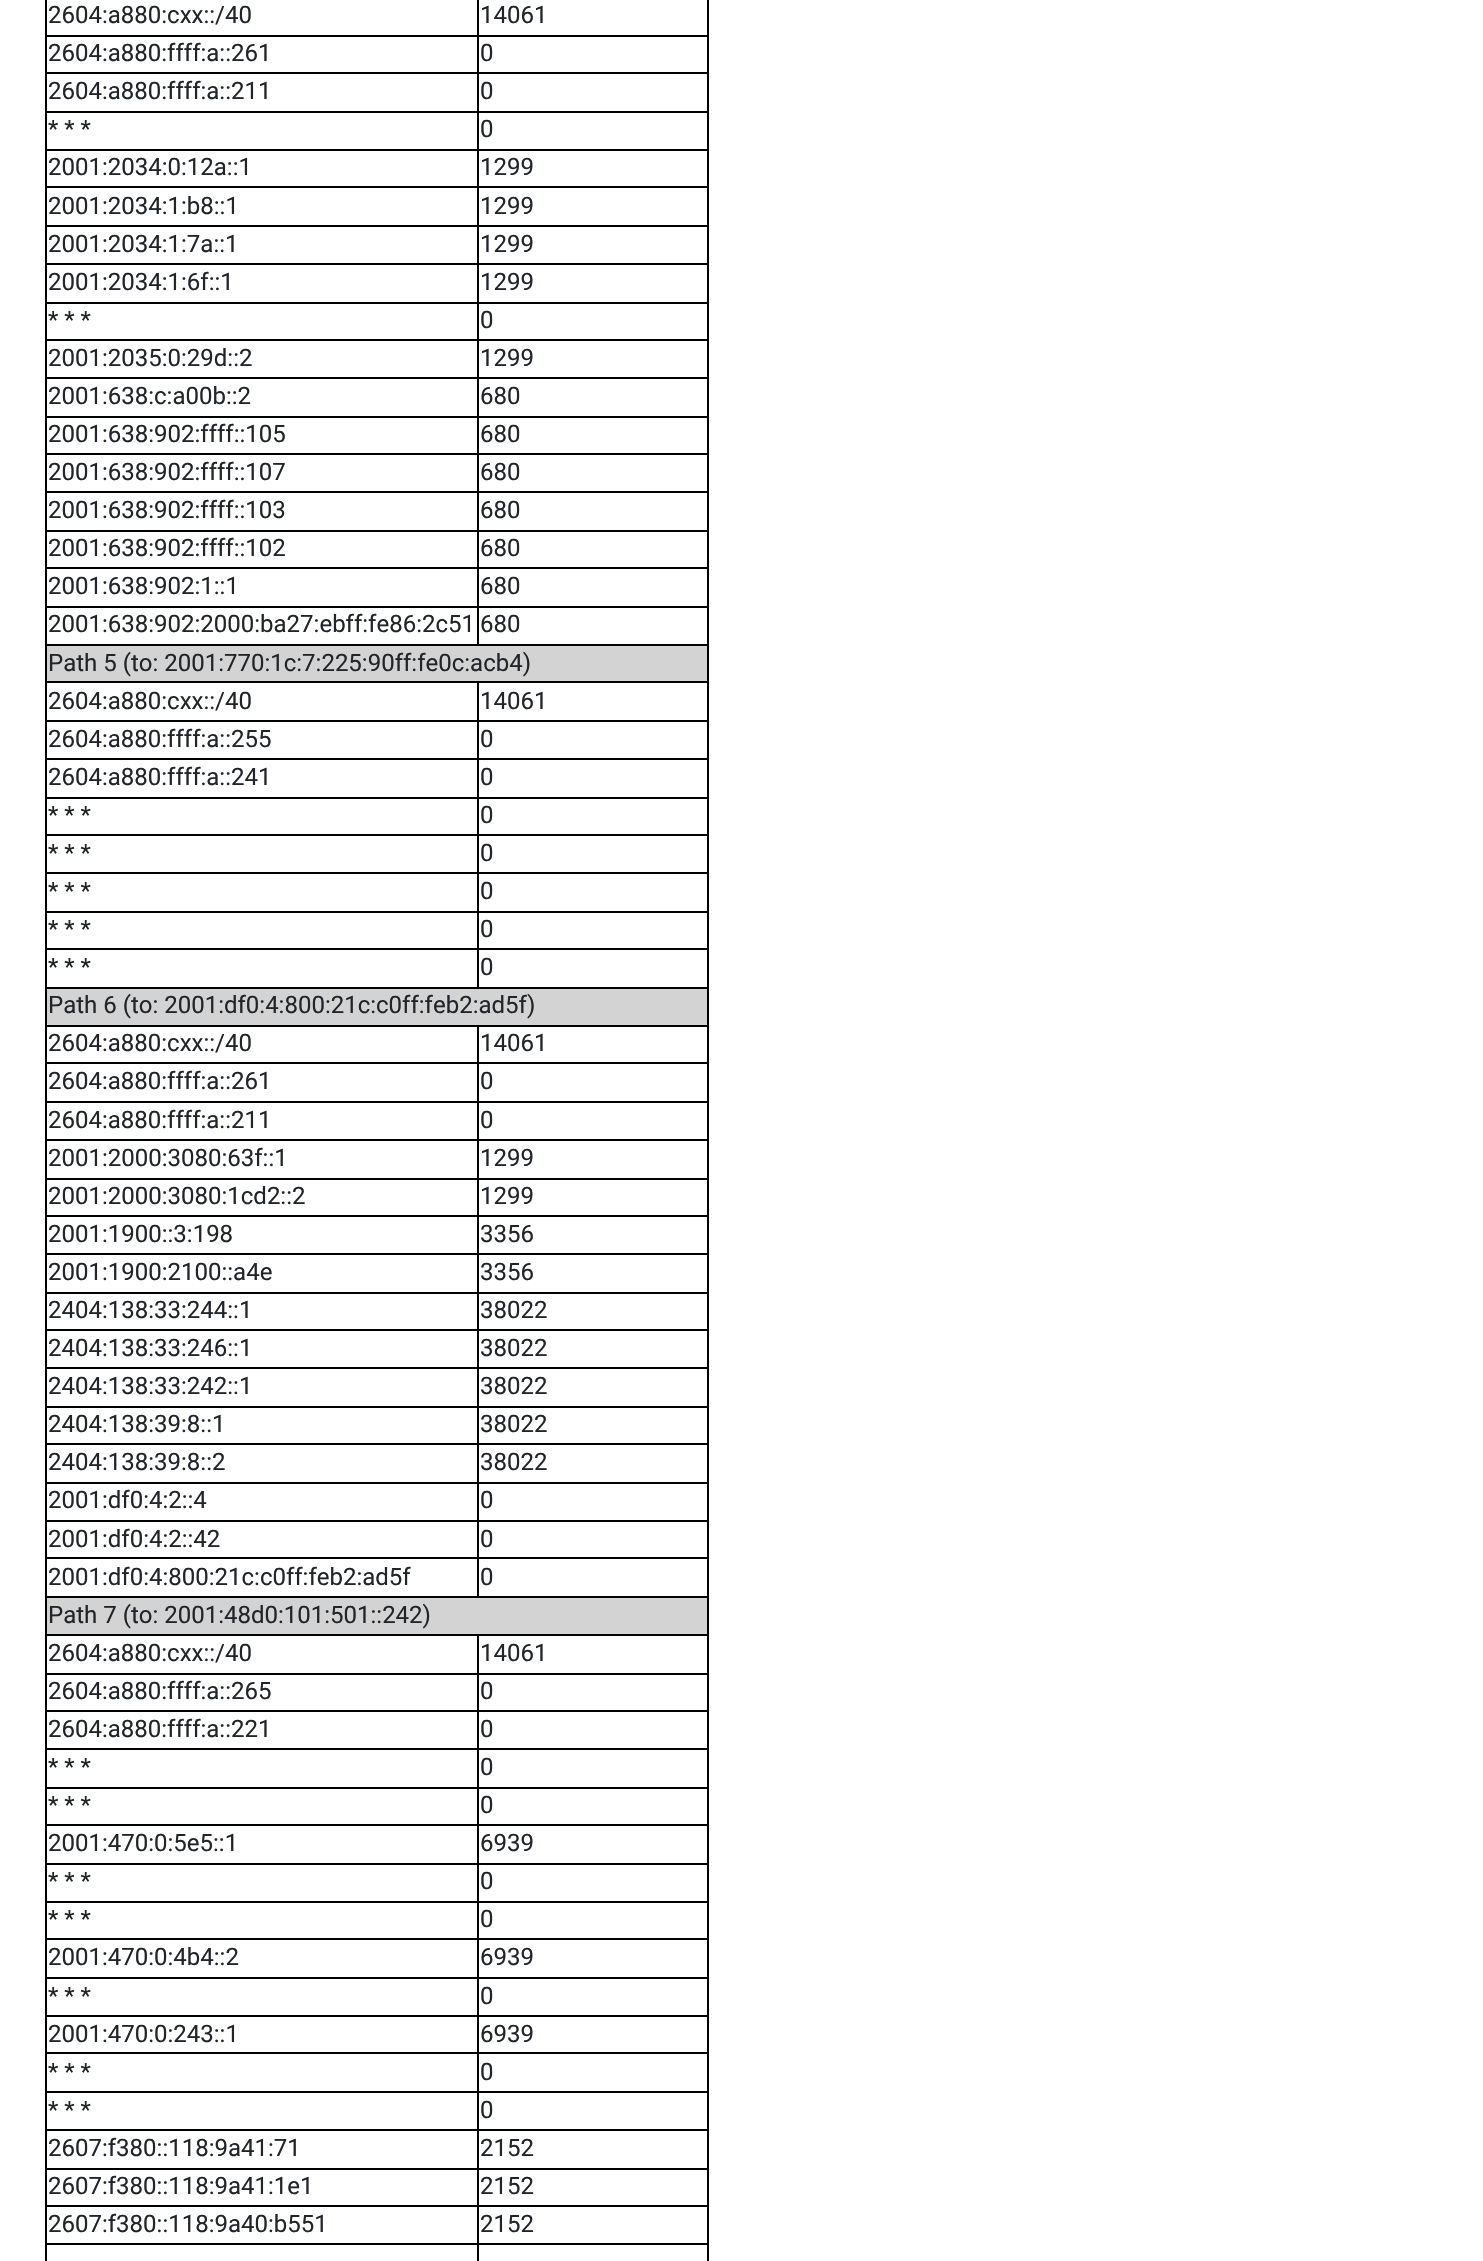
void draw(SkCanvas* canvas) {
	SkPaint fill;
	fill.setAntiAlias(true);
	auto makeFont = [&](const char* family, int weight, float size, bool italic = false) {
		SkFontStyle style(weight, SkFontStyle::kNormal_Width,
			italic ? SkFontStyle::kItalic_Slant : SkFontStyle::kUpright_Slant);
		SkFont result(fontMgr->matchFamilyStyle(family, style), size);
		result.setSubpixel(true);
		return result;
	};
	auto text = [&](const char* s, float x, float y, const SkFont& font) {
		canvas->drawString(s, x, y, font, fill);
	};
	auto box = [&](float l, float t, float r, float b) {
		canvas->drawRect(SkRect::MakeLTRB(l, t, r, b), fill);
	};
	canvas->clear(0xFFFFFFFF);
	fill.setColor(0xFF000000);
	box(707, 0, 709, 2261);
	box(45, 0, 47, 2261);
	box(477, 35, 708, 37);
	box(477, 72, 708, 74);
	box(477, 111, 708, 113);
	box(477, 149, 708, 151);
	box(477, 186, 708, 188);
	box(477, 225, 708, 227);
	box(477, 263, 708, 265);
	box(477, 302, 708, 304);
	box(477, 339, 708, 341);
	box(477, 377, 708, 379);
	box(477, 416, 708, 418);
	box(477, 453, 708, 455);
	box(477, 491, 708, 493);
	box(477, 530, 708, 532);
	box(477, 567, 708, 569);
	box(477, 606, 708, 608);
	box(45, 644, 708, 646);
	box(477, 606, 479, 645);
	box(45, 606, 479, 608);
	box(477, 567, 479, 608);
	box(45, 567, 479, 569);
	box(477, 530, 479, 569);
	box(45, 530, 479, 532);
	box(477, 491, 479, 531);
	box(45, 491, 479, 493);
	box(477, 453, 479, 492);
	box(45, 453, 479, 455);
	box(477, 416, 479, 455);
	box(45, 416, 479, 418);
	box(477, 377, 479, 417);
	box(45, 377, 479, 379);
	box(477, 339, 479, 378);
	box(45, 339, 479, 341);
	box(477, 302, 479, 341);
	box(45, 302, 479, 304);
	box(477, 263, 479, 303);
	box(45, 263, 479, 265);
	box(477, 225, 479, 264);
	box(45, 225, 479, 227);
	box(477, 186, 479, 227);
	box(45, 186, 479, 188);
	box(477, 149, 479, 188);
	box(45, 149, 479, 151);
	box(477, 111, 479, 150);
	box(45, 111, 479, 113);
	box(477, 72, 479, 113);
	box(45, 72, 479, 74);
	box(477, 35, 479, 74);
	box(45, 35, 479, 37);
	box(477, 0, 479, 36);
	fill.setColor(0xFFD3D3D3);
	box(47, 646, 707, 681);
	fill.setColor(0xFF000000);
	box(477, 681, 708, 683);
	box(477, 720, 708, 722);
	box(477, 758, 708, 760);
	box(477, 797, 708, 799);
	box(477, 834, 708, 836);
	box(477, 872, 708, 874);
	box(477, 911, 708, 913);
	box(477, 948, 708, 950);
	box(45, 987, 708, 989);
	box(477, 948, 479, 989);
	box(45, 948, 479, 950);
	box(477, 911, 479, 950);
	box(45, 911, 479, 913);
	box(477, 872, 479, 912);
	box(45, 872, 479, 874);
	box(477, 834, 479, 873);
	box(45, 834, 479, 836);
	box(477, 797, 479, 836);
	box(45, 797, 479, 799);
	box(477, 758, 479, 798);
	box(45, 758, 479, 760);
	box(477, 720, 479, 759);
	box(45, 720, 479, 722);
	box(477, 681, 479, 722);
	box(45, 681, 479, 683);
	fill.setColor(0xFFD3D3D3);
	box(47, 989, 707, 1025);
	fill.setColor(0xFF000000);
	box(477, 1025, 708, 1027);
	box(477, 1062, 708, 1064);
	box(477, 1101, 708, 1103);
	box(477, 1139, 708, 1141);
	box(477, 1178, 708, 1180);
	box(477, 1215, 708, 1217);
	box(477, 1253, 708, 1255);
	box(477, 1292, 708, 1294);
	box(477, 1329, 708, 1331);
	box(477, 1367, 708, 1369);
	box(477, 1406, 708, 1408);
	box(477, 1443, 708, 1445);
	box(477, 1482, 708, 1484);
	box(477, 1520, 708, 1522);
	box(477, 1557, 708, 1559);
	box(45, 1596, 708, 1598);
	box(477, 1557, 479, 1598);
	box(45, 1557, 479, 1559);
	box(477, 1520, 479, 1559);
	box(45, 1520, 479, 1522);
	box(477, 1482, 479, 1521);
	box(45, 1482, 479, 1484);
	box(477, 1443, 479, 1484);
	box(45, 1443, 479, 1445);
	box(477, 1406, 479, 1445);
	box(45, 1406, 479, 1408);
	box(477, 1367, 479, 1407);
	box(45, 1367, 479, 1369);
	box(477, 1329, 479, 1368);
	box(45, 1329, 479, 1331);
	box(477, 1292, 479, 1331);
	box(45, 1292, 479, 1294);
	box(477, 1253, 479, 1293);
	box(45, 1253, 479, 1255);
	box(477, 1215, 479, 1254);
	box(45, 1215, 479, 1217);
	box(477, 1178, 479, 1217);
	box(45, 1178, 479, 1180);
	box(477, 1139, 479, 1179);
	box(45, 1139, 479, 1141);
	box(477, 1101, 479, 1140);
	box(45, 1101, 479, 1103);
	box(477, 1062, 479, 1103);
	box(45, 1062, 479, 1064);
	box(477, 1025, 479, 1064);
	box(45, 1025, 479, 1027);
	fill.setColor(0xFFD3D3D3);
	box(47, 1598, 707, 1634);
	fill.setColor(0xFF000000);
	box(477, 1634, 708, 1636);
	box(477, 1673, 708, 1675);
	box(477, 1710, 708, 1712);
	box(477, 1748, 708, 1750);
	box(477, 1787, 708, 1789);
	box(477, 1824, 708, 1826);
	box(477, 1863, 708, 1865);
	box(477, 1901, 708, 1903);
	box(477, 1938, 708, 1940);
	box(477, 1977, 708, 1979);
	box(477, 2015, 708, 2017);
	box(477, 2052, 708, 2054);
	box(477, 2091, 708, 2093);
	box(477, 2129, 708, 2131);
	box(477, 2168, 708, 2170);
	box(477, 2205, 708, 2207);
	box(477, 2243, 708, 2245);
	box(477, 2243, 479, 2261);
	box(45, 2243, 479, 2245);
	box(477, 2205, 479, 2244);
	box(45, 2205, 479, 2207);
	box(477, 2168, 479, 2207);
	box(45, 2168, 479, 2170);
	box(477, 2129, 479, 2169);
	box(45, 2129, 479, 2131);
	box(477, 2091, 479, 2130);
	box(45, 2091, 479, 2093);
	box(477, 2052, 479, 2093);
	box(45, 2052, 479, 2054);
	box(477, 2015, 479, 2054);
	box(45, 2015, 479, 2017);
	box(477, 1977, 479, 2016);
	box(45, 1977, 479, 1979);
	box(477, 1938, 479, 1979);
	box(45, 1938, 479, 1940);
	box(477, 1901, 479, 1940);
	box(45, 1901, 479, 1903);
	box(477, 1863, 479, 1902);
	box(45, 1863, 479, 1865);
	box(477, 1824, 479, 1865);
	box(45, 1824, 479, 1826);
	box(477, 1787, 479, 1826);
	box(45, 1787, 479, 1789);
	box(477, 1748, 479, 1788);
	box(45, 1748, 479, 1750);
	box(477, 1710, 479, 1749);
	box(45, 1710, 479, 1712);
	box(477, 1673, 479, 1712);
	box(45, 1673, 479, 1675);
	box(477, 1634, 479, 1674);
	box(45, 1634, 479, 1636);
	auto font1 = makeFont("Roboto", 400, 24);
	fill.setColor(0xFF212529);
	text("2604:a880:cxx::/40", 48, 23, font1);
	text("14061", 480, 23, font1);
	text("2604:a880:ffff:a::261", 48, 61, font1);
	text("0", 480, 61, font1);
	text("2604:a880:ffff:a::211", 48, 99, font1);
	text("0", 480, 99, font1);
	text("* * *", 48, 137, font1);
	text("0", 480, 137, font1);
	text("2001:2034:0:12a::1", 48, 175, font1);
	text("1299", 480, 175, font1);
	text("2001:2034:1:b8::1", 48, 214, font1);
	text("1299", 480, 214, font1);
	text("2001:2034:1:7a::1", 48, 252, font1);
	text("1299", 480, 252, font1);
	text("2001:2034:1:6f::1", 48, 290, font1);
	text("1299", 480, 290, font1);
	text("* * *", 48, 328, font1);
	text("0", 480, 328, font1);
	text("2001:2035:0:29d::2", 48, 366, font1);
	text("1299", 480, 366, font1);
	text("2001:638:c:a00b::2", 48, 404, font1);
	text("680", 480, 404, font1);
	text("2001:638:902:ffff::105", 48, 442, font1);
	text("680", 480, 442, font1);
	text("2001:638:902:ffff::107", 48, 480, font1);
	text("680", 480, 480, font1);
	text("2001:638:902:ffff::103", 48, 518, font1);
	text("680", 480, 518, font1);
	text("2001:638:902:ffff::102", 48, 556, font1);
	text("680", 480, 556, font1);
	text("2001:638:902:1::1", 48, 594, font1);
	text("680", 480, 594, font1);
	text("2001:638:902:2000:ba27:ebff:fe86:2c51", 48, 632, font1);
	text("680", 480, 632, font1);
	text("Path 5 (to: 2001:770:1c:7:225:90ff:fe0c:acb4)", 48, 671, font1);
	text("2604:a880:cxx::/40", 48, 709, font1);
	text("14061", 480, 709, font1);
	text("2604:a880:ffff:a::255", 48, 747, font1);
	text("0", 480, 747, font1);
	text("2604:a880:ffff:a::241", 48, 785, font1);
	text("0", 480, 785, font1);
	text("* * *", 48, 823, font1);
	text("0", 480, 823, font1);
	text("* * *", 48, 861, font1);
	text("0", 480, 861, font1);
	text("* * *", 48, 899, font1);
	text("0", 480, 899, font1);
	text("* * *", 48, 937, font1);
	text("0", 480, 937, font1);
	text("* * *", 48, 975, font1);
	text("0", 480, 975, font1);
	text("Path 6 (to: 2001:df0:4:800:21c:c0ff:feb2:ad5f)", 48, 1013, font1);
	text("2604:a880:cxx::/40", 48, 1051, font1);
	text("14061", 480, 1051, font1);
	text("2604:a880:ffff:a::261", 48, 1089, font1);
	text("0", 480, 1089, font1);
	text("2604:a880:ffff:a::211", 48, 1128, font1);
	text("0", 480, 1128, font1);
	text("2001:2000:3080:63f::1", 48, 1166, font1);
	text("1299", 480, 1166, font1);
	text("2001:2000:3080:1cd2::2", 48, 1204, font1);
	text("1299", 480, 1204, font1);
	text("2001:1900::3:198", 48, 1242, font1);
	text("3356", 480, 1242, font1);
	text("2001:1900:2100::a4e", 48, 1280, font1);
	text("3356", 480, 1280, font1);
	text("2404:138:33:244::1", 48, 1318, font1);
	text("38022", 480, 1318, font1);
	text("2404:138:33:246::1", 48, 1356, font1);
	text("38022", 480, 1356, font1);
	text("2404:138:33:242::1", 48, 1394, font1);
	text("38022", 480, 1394, font1);
	text("2404:138:39:8::1", 48, 1432, font1);
	text("38022", 480, 1432, font1);
	text("2404:138:39:8::2", 48, 1470, font1);
	text("38022", 480, 1470, font1);
	text("2001:df0:4:2::4", 48, 1508, font1);
	text("0", 480, 1508, font1);
	text("2001:df0:4:2::42", 48, 1547, font1);
	text("0", 480, 1547, font1);
	text("2001:df0:4:800:21c:c0ff:feb2:ad5f", 48, 1585, font1);
	text("0", 480, 1585, font1);
	text("Path 7 (to: 2001:48d0:101:501::242)", 48, 1623, font1);
	text("2604:a880:cxx::/40", 48, 1661, font1);
	text("14061", 480, 1661, font1);
	text("2604:a880:ffff:a::265", 48, 1699, font1);
	text("0", 480, 1699, font1);
	text("2604:a880:ffff:a::221", 48, 1737, font1);
	text("0", 480, 1737, font1);
	text("* * *", 48, 1775, font1);
	text("0", 480, 1775, font1);
	text("* * *", 48, 1813, font1);
	text("0", 480, 1813, font1);
	text("2001:470:0:5e5::1", 48, 1851, font1);
	text("6939", 480, 1851, font1);
	text("* * *", 48, 1889, font1);
	text("0", 480, 1889, font1);
	text("* * *", 48, 1927, font1);
	text("0", 480, 1927, font1);
	text("2001:470:0:4b4::2", 48, 1965, font1);
	text("6939", 480, 1965, font1);
	text("* * *", 48, 2004, font1);
	text("0", 480, 2004, font1);
	text("2001:470:0:243::1", 48, 2042, font1);
	text("6939", 480, 2042, font1);
	text("* * *", 48, 2080, font1);
	text("0", 480, 2080, font1);
	text("* * *", 48, 2118, font1);
	text("0", 480, 2118, font1);
	text("2607:f380::118:9a41:71", 48, 2156, font1);
	text("2152", 480, 2156, font1);
	text("2607:f380::118:9a41:1e1", 48, 2194, font1);
	text("2152", 480, 2194, font1);
	text("2607:f380::118:9a40:b551", 48, 2232, font1);
	text("2152", 480, 2232, font1);
}
